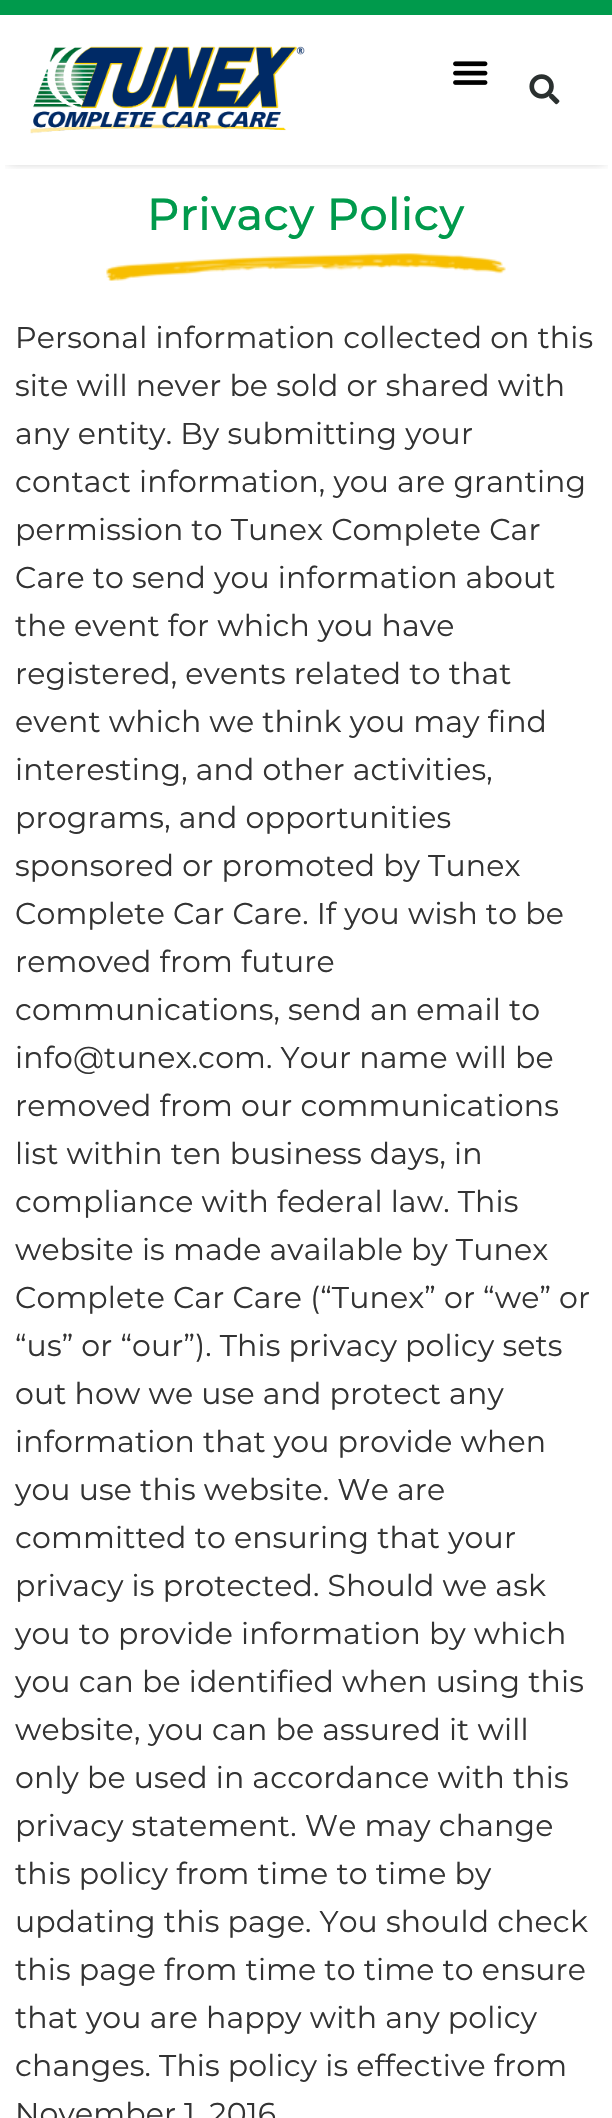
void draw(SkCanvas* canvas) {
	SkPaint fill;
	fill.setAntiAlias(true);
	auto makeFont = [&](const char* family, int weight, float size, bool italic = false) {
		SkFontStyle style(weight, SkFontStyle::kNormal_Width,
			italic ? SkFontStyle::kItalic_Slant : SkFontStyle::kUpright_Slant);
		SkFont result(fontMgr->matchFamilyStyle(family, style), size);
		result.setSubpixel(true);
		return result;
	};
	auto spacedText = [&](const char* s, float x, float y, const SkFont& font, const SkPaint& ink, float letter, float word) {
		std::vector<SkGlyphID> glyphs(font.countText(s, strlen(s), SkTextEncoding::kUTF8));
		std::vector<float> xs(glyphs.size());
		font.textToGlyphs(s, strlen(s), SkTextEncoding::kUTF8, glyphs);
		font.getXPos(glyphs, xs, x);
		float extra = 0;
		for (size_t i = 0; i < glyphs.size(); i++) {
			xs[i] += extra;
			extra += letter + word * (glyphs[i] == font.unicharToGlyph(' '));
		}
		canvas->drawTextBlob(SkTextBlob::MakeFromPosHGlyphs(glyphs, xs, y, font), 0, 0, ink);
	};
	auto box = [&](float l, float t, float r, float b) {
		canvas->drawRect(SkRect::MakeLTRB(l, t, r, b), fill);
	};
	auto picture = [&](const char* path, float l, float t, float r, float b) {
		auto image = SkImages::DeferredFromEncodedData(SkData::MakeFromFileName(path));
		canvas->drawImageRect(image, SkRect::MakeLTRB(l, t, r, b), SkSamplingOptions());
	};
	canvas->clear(0xFFFFFFFF);
	canvas->save();
	canvas->clipRect(SkRect::MakeLTRB(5, 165, 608, 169));
	fill.setColor(0x80000000);
	fill.setMaskFilter(SkMaskFilter::MakeBlur(kNormal_SkBlurStyle, 6));
	canvas->drawRect(SkRect::MakeLTRB(8, 9, 605, 159), fill);
	fill.setMaskFilter(nullptr);
	canvas->restore();
	fill.setColor(0xFF009A4C);
	box(0, 0, 612, 15);
	picture("image0.png", 30, 46, 305, 134);
	picture("image1.png", 453, 61, 488, 85);
	picture("image2.png", 529, 74, 560, 105);
	picture("image3.png", 106, 253, 506, 281);
	auto font1 = makeFont("Montserrat", 500, 45);
	spacedText("Privacy Policy", 147, 230, font1, fill, 0.15f, 0);
	auto font2 = makeFont("Montserrat", 400, 30);
	fill.setColor(0xFF333333);
	spacedText("Personal information collected on this", 15, 348, font2, fill, 0.15f, 0);
	spacedText("site will never be sold or shared with", 15, 396, font2, fill, 0.15f, 0);
	spacedText("any entity. By submitting your", 15, 444, font2, fill, 0.15f, 0);
	spacedText("contact information, you are granting", 15, 492, font2, fill, 0.15f, 0);
	spacedText("permission to Tunex Complete Car", 15, 540, font2, fill, 0.15f, 0);
	spacedText("Care to send you information about", 15, 588, font2, fill, 0.15f, 0);
	spacedText("the event for which you have", 15, 636, font2, fill, 0.15f, 0);
	spacedText("registered, events related to that", 15, 684, font2, fill, 0.15f, 0);
	spacedText("event which we think you may find", 15, 732, font2, fill, 0.15f, 0);
	spacedText("interesting, and other activities,", 15, 780, font2, fill, 0.15f, 0);
	spacedText("programs, and opportunities", 15, 828, font2, fill, 0.15f, 0);
	spacedText("sponsored or promoted by Tunex", 15, 876, font2, fill, 0.15f, 0);
	spacedText("Complete Car Care. If you wish to be", 15, 924, font2, fill, 0.15f, 0);
	spacedText("removed from future", 15, 972, font2, fill, 0.15f, 0);
	spacedText("communications, send an email to", 15, 1020, font2, fill, 0.15f, 0);
	spacedText("info@tunex.com. Your name will be", 15, 1068, font2, fill, 0.15f, 0);
	spacedText("removed from our communications", 15, 1116, font2, fill, 0.15f, 0);
	spacedText("list within ten business days, in", 15, 1164, font2, fill, 0.15f, 0);
	spacedText("compliance with federal law. This", 15, 1212, font2, fill, 0.15f, 0);
	spacedText("website is made available by Tunex", 15, 1260, font2, fill, 0.15f, 0);
	spacedText("Complete Car Care (“Tunex” or “we” or", 15, 1308, font2, fill, 0.15f, 0);
	spacedText("“us” or “our”). This privacy policy sets", 15, 1356, font2, fill, 0.15f, 0);
	spacedText("out how we use and protect any", 15, 1404, font2, fill, 0.15f, 0);
	spacedText("information that you provide when", 15, 1452, font2, fill, 0.15f, 0);
	spacedText("you use this website. We are", 15, 1500, font2, fill, 0.15f, 0);
	spacedText("committed to ensuring that your", 15, 1548, font2, fill, 0.15f, 0);
	spacedText("privacy is protected. Should we ask", 15, 1596, font2, fill, 0.15f, 0);
	spacedText("you to provide information by which", 15, 1644, font2, fill, 0.15f, 0);
	spacedText("you can be identified when using this", 15, 1692, font2, fill, 0.15f, 0);
	spacedText("website, you can be assured it will", 15, 1740, font2, fill, 0.15f, 0);
	spacedText("only be used in accordance with this", 15, 1788, font2, fill, 0.15f, 0);
	spacedText("privacy statement. We may change", 15, 1836, font2, fill, 0.15f, 0);
	spacedText("this policy from time to time by", 15, 1884, font2, fill, 0.15f, 0);
	spacedText("updating this page. You should check", 15, 1932, font2, fill, 0.15f, 0);
	spacedText("this page from time to time to ensure", 15, 1980, font2, fill, 0.15f, 0);
	spacedText("that you are happy with any policy", 15, 2028, font2, fill, 0.15f, 0);
	spacedText("changes. This policy is effective from", 15, 2076, font2, fill, 0.15f, 0);
	spacedText("November 1, 2016", 15, 2124, font2, fill, 0.15f, 0);
}
